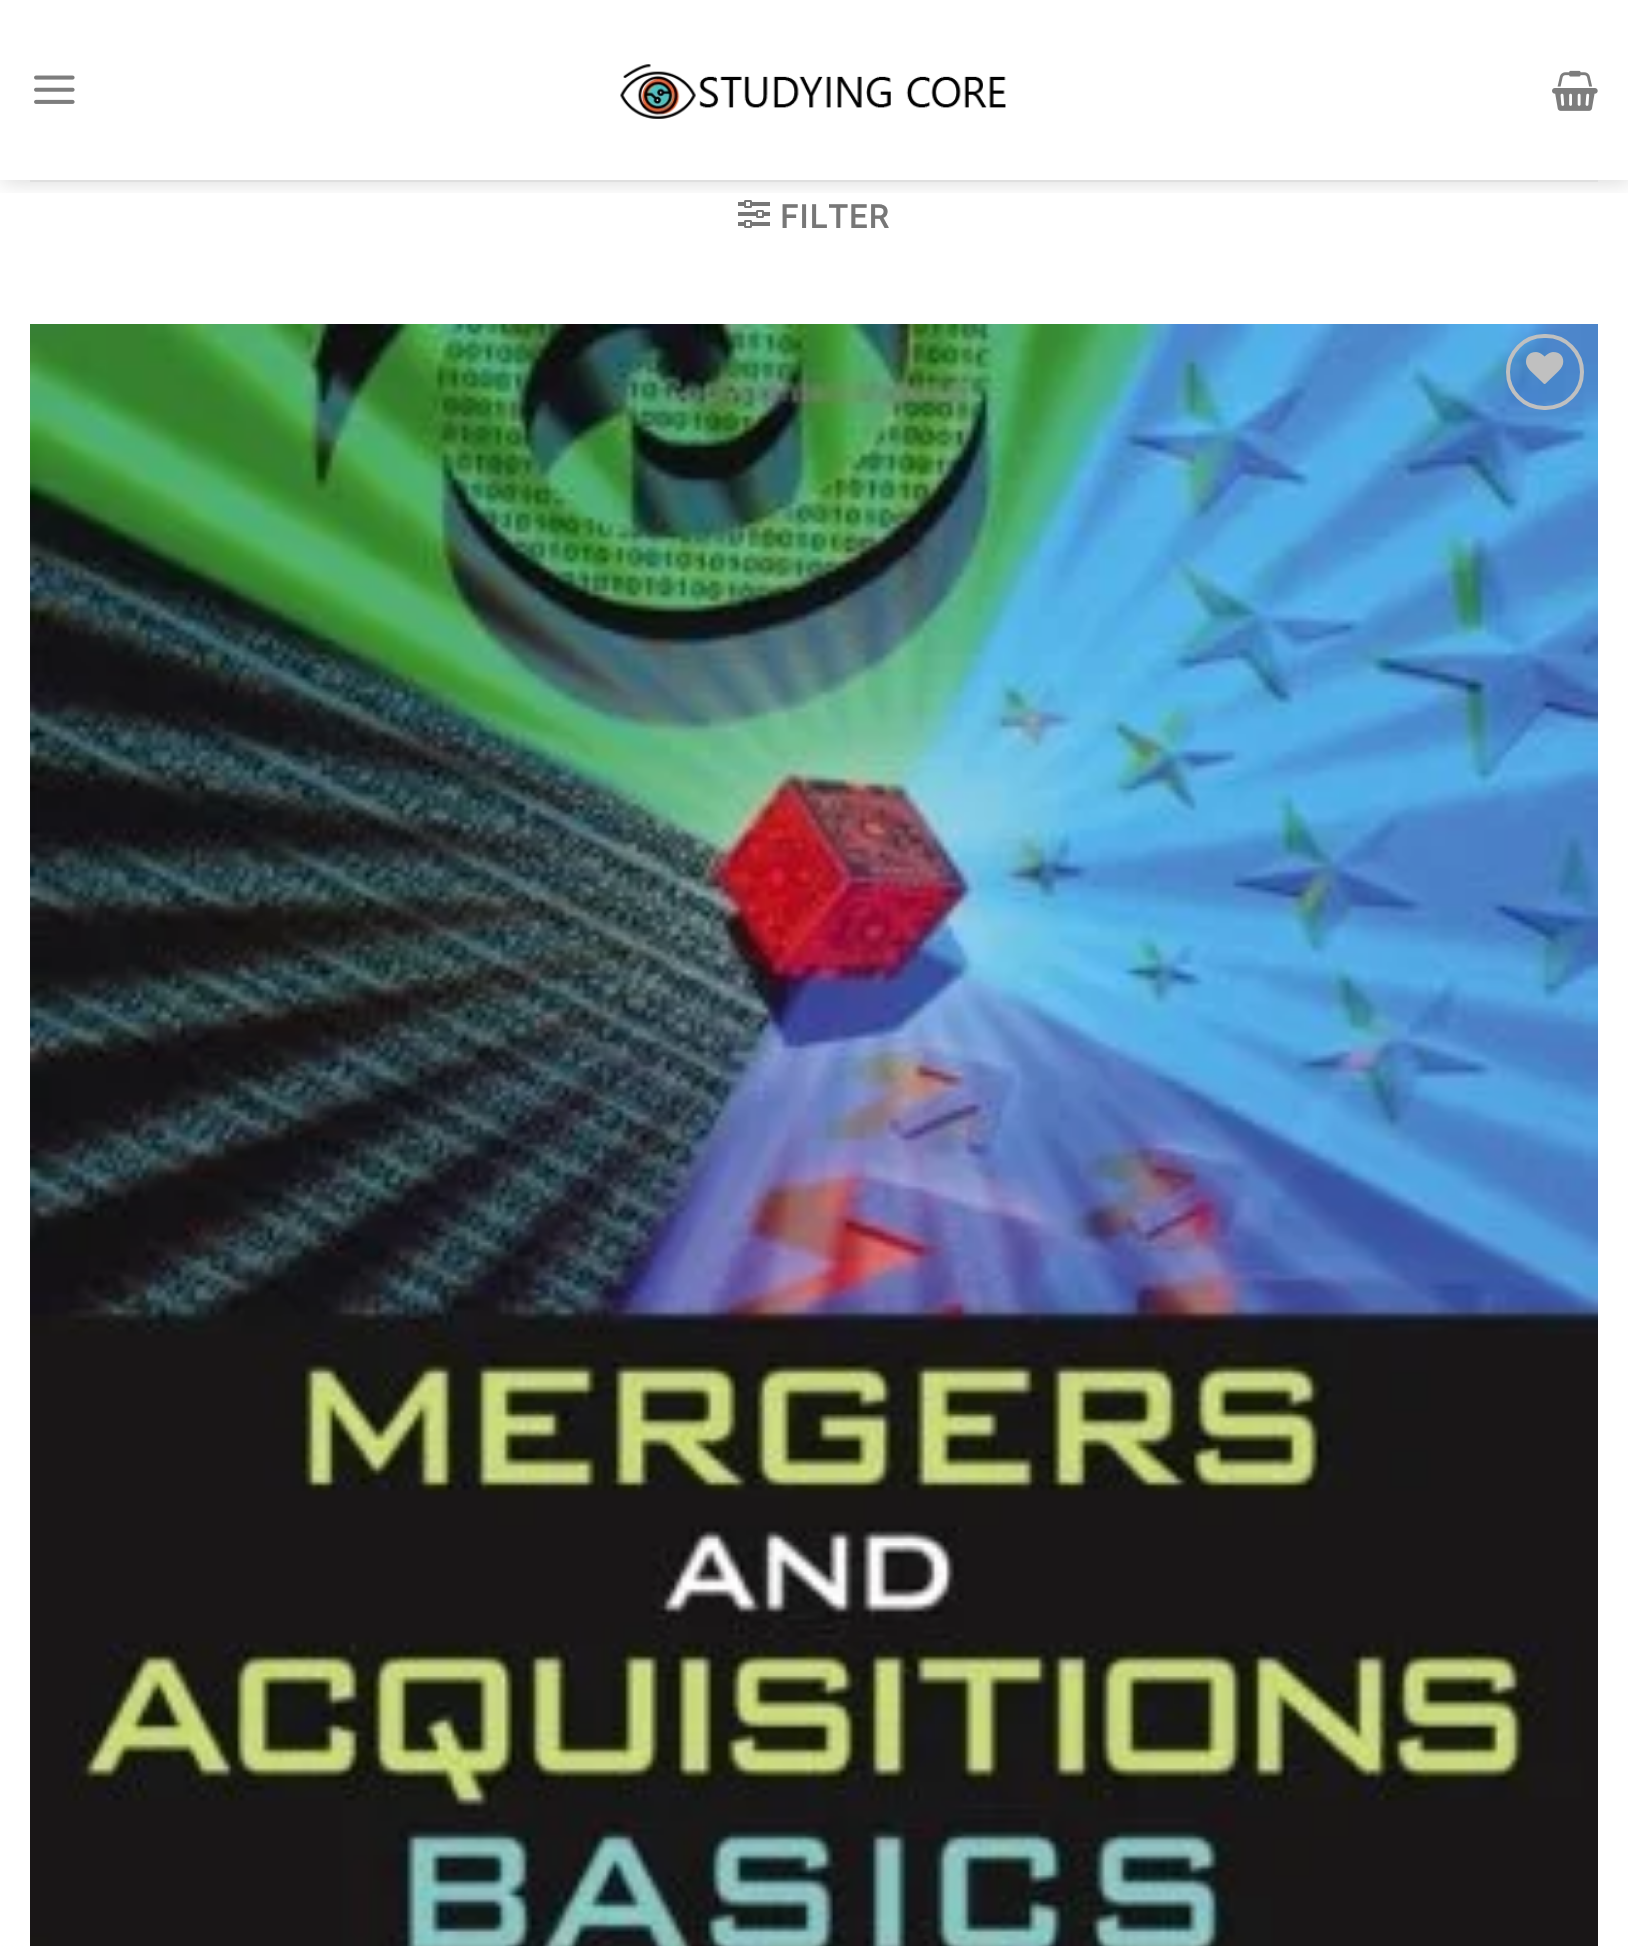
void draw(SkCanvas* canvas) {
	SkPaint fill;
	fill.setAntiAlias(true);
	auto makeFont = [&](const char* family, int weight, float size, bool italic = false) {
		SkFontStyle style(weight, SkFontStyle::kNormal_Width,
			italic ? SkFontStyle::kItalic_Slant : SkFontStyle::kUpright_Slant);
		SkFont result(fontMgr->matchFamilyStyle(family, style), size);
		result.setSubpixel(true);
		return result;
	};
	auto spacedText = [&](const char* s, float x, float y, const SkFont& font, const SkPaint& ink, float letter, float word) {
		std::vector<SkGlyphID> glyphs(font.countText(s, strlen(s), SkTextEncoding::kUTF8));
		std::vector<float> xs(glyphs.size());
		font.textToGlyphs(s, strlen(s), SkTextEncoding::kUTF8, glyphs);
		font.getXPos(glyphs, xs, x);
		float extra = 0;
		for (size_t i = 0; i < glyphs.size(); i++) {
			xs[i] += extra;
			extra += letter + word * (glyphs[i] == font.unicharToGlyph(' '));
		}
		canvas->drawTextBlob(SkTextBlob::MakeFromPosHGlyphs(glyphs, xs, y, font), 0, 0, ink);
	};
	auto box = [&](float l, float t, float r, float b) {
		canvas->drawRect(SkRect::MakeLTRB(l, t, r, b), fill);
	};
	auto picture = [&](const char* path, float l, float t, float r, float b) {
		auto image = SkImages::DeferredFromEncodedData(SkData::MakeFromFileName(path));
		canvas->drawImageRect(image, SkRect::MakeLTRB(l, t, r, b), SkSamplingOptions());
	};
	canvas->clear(0xFFFFFFFF);
	picture("image3.png", 738, 200, 770, 228);
	canvas->save();
	canvas->clipRect(SkRect::MakeLTRB(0, 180, 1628, 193));
	fill.setColor(0x26000000);
	fill.setMaskFilter(SkMaskFilter::MakeBlur(kNormal_SkBlurStyle, 10));
	canvas->drawRect(SkRect::MakeLTRB(2, 2, 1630, 182), fill);
	fill.setMaskFilter(nullptr);
	canvas->restore();
	picture("image0.png", 34, 75, 75, 104);
	picture("image1.png", 620, 64, 1006, 119);
	picture("image2.png", 1552, 70, 1598, 111);
	fill.setColor(0xFFDFDFDF);
	box(30, 180, 1598, 182);
	picture("image4.png", 30, 324, 1598, 1946);
	fill.setStyle(SkPaint::kStroke_Style);
	fill.setStrokeWidth(4);
	fill.setColor(0xFFC0C0C0);
	canvas->drawRoundRect(SkRect::MakeLTRB(1508, 336, 1582, 408), 36, 36, fill);
	picture("image5.png", 1526, 352, 1564, 384);
	auto font1 = makeFont("Roboto", 700, 32);
	fill.setStyle(SkPaint::kFill_Style);
	fill.setColor(0xFF777777);
	spacedText("FILTER", 780, 228, font1, fill, 1.5f, 0);
}
